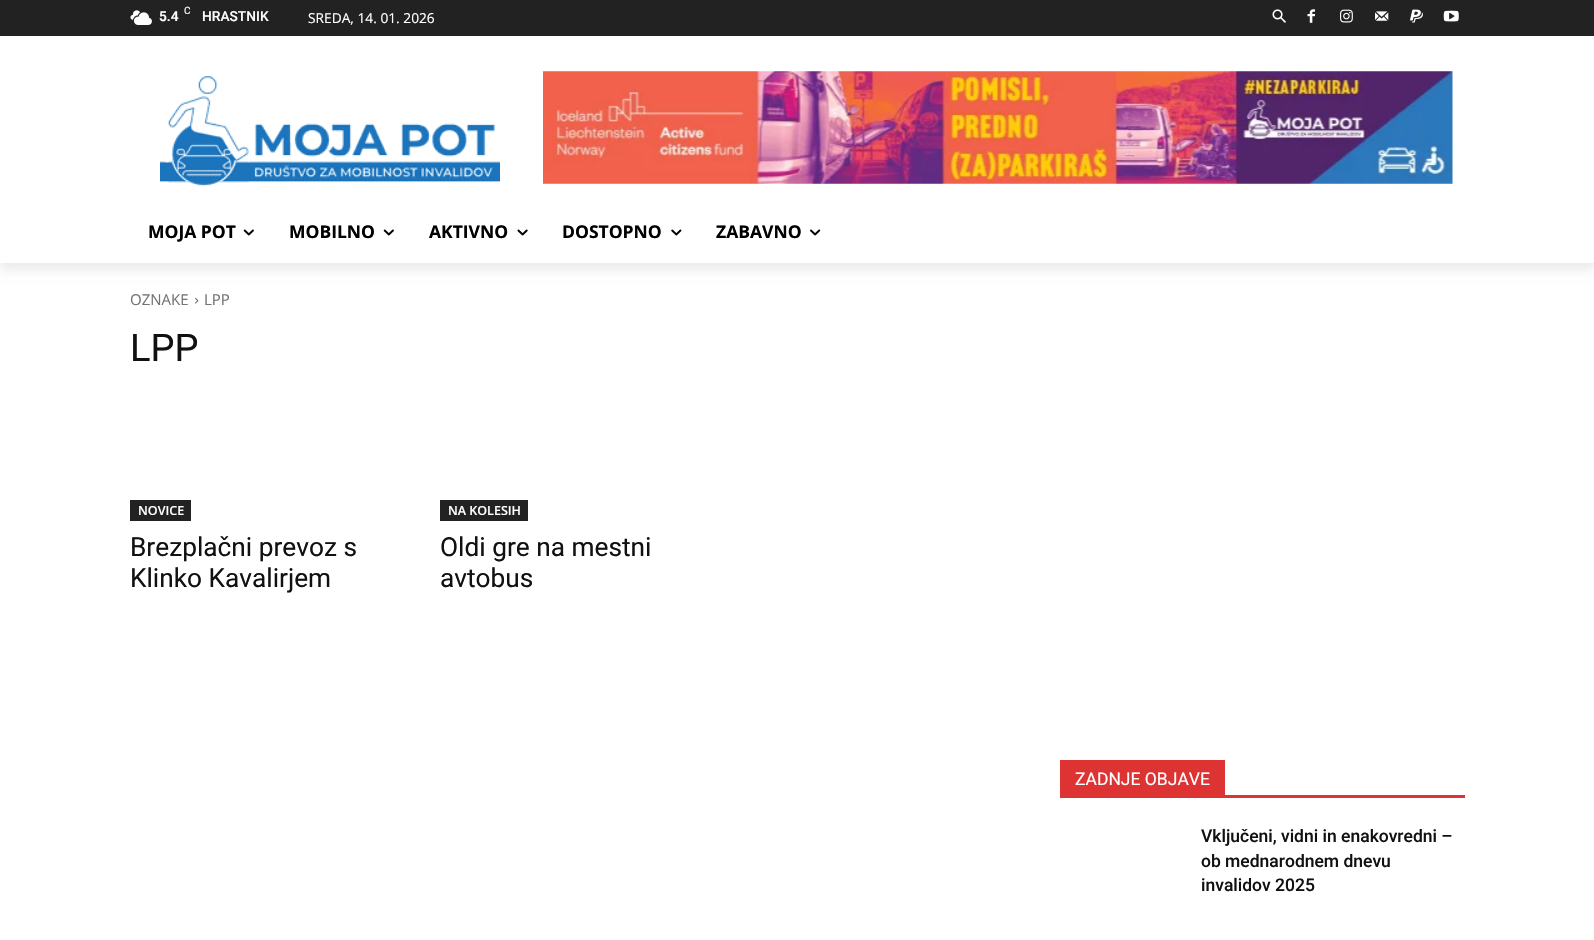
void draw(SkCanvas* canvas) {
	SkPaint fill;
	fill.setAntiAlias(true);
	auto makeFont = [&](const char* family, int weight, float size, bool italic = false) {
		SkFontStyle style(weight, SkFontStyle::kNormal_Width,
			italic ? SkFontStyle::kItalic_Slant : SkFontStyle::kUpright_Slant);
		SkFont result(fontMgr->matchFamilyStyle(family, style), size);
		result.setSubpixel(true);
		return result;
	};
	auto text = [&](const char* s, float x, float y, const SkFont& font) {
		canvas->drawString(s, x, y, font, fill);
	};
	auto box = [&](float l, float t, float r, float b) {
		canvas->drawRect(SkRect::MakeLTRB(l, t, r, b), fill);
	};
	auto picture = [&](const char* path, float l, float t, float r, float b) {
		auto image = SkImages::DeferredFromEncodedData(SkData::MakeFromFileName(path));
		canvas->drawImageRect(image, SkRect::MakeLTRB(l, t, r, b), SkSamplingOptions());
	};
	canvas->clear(0xFFFFFFFF);
	fill.setColor(0xFF222222);
	box(0, 0, 1594, 36);
	picture("image0.png", 130, 10, 152, 25);
	picture("image2.png", 1307, 9, 1315, 23);
	picture("image3.png", 1340, 9, 1353, 23);
	picture("image4.png", 1375, 11, 1389, 21);
	picture("image5.png", 1410, 9, 1423, 23);
	picture("image6.png", 1443, 10, 1459, 22);
	picture("image7.png", 160, 76, 500, 186);
	picture("image8.png", 543, 71, 1453, 184);
	canvas->save();
	canvas->clipPath(SkPathBuilder(SkPathFillType::kEvenOdd).moveTo(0, 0).lineTo(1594, 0).lineTo(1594, 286).lineTo(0, 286).close().moveTo(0, 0).lineTo(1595, 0).lineTo(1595, 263).lineTo(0, 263).close().detach(), true);
	fill.setColor(0x14000000);
	fill.setMaskFilter(SkMaskFilter::MakeBlur(kNormal_SkBlurStyle, 5));
	canvas->drawRect(SkRect::MakeLTRB(0, 8, 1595, 270), fill);
	fill.setMaskFilter(nullptr);
	canvas->restore();
	picture("image1.png", 1272, 9, 1286, 23);
	picture("image9.png", 243, 229, 254, 236);
	picture("image9.png", 383, 229, 394, 236);
	picture("image10.png", 517, 229, 528, 236);
	picture("image11.png", 671, 229, 682, 236);
	picture("image12.png", 810, 229, 821, 236);
	picture("image13.png", 195, 297, 199, 304);
	fill.setColor(0xFF222222);
	box(130, 500, 191, 521);
	box(440, 500, 528, 521);
	fill.setColor(0xFFDD3333);
	box(1060, 795, 1465, 798);
	box(1060, 760, 1225, 795);
	auto font1 = makeFont("Roboto", 600, 13.75f);
	fill.setColor(0xFFFFFFFF);
	text("5.4", 159, 21, font1);
	auto font2 = makeFont("Roboto", 400, 10);
	text("C", 184, 14, font2);
	auto font3 = makeFont("Roboto", 500, 13.75f);
	text("HRASTNIK", 202, 21, font3);
	auto font4 = makeFont("Open Sans", 400, 13.75f);
	text("SREDA, 14. 01. 2026", 308, 23, font4);
	auto font5 = makeFont("Open Sans", 700, 17.5f);
	fill.setColor(0xFF000000);
	text("MOJA POT", 148, 238, font5);
	text("MOBILNO", 289, 238, font5);
	text("AKTIVNO", 429, 238, font5);
	text("DOSTOPNO", 562, 238, font5);
	text("ZABAVNO", 716, 238, font5);
	auto font6 = makeFont("Open Sans", 400, 15);
	fill.setColor(0xFF747474);
	text("OZNAKE", 130, 305, font6);
	text("LPP", 204, 305, font6);
	auto font7 = makeFont("Roboto", 400, 38);
	fill.setColor(0xFF111111);
	text("LPP", 130, 361, font7);
	auto font8 = makeFont("Open Sans", 600, 12.5f);
	fill.setColor(0xFFFFFFFF);
	text("NOVICE", 138, 515, font8);
	auto font9 = makeFont("Roboto", 400, 26.25f);
	fill.setColor(0xFF111111);
	text("Brezplačni prevoz s", 130, 556, font9);
	text("Klinko Kavalirjem", 130, 587, font9);
	fill.setColor(0xFFFFFFFF);
	text("NA KOLESIH", 448, 515, font8);
	fill.setColor(0xFF111111);
	text("Oldi gre na mestni", 440, 556, font9);
	text("avtobus", 440, 587, font9);
	auto font10 = makeFont("Roboto", 400, 17.5f);
	fill.setColor(0xFFFFFFFF);
	text("ZADNJE OBJAVE", 1075, 785, font10);
	auto font11 = makeFont("Roboto", 500, 17.5f);
	fill.setColor(0xFF111111);
	text("Vključeni, vidni in enakovredni –", 1201, 842, font11);
	text("ob mednarodnem dnevu", 1201, 867, font11);
	text("invalidov 2025", 1201, 891, font11);
}
